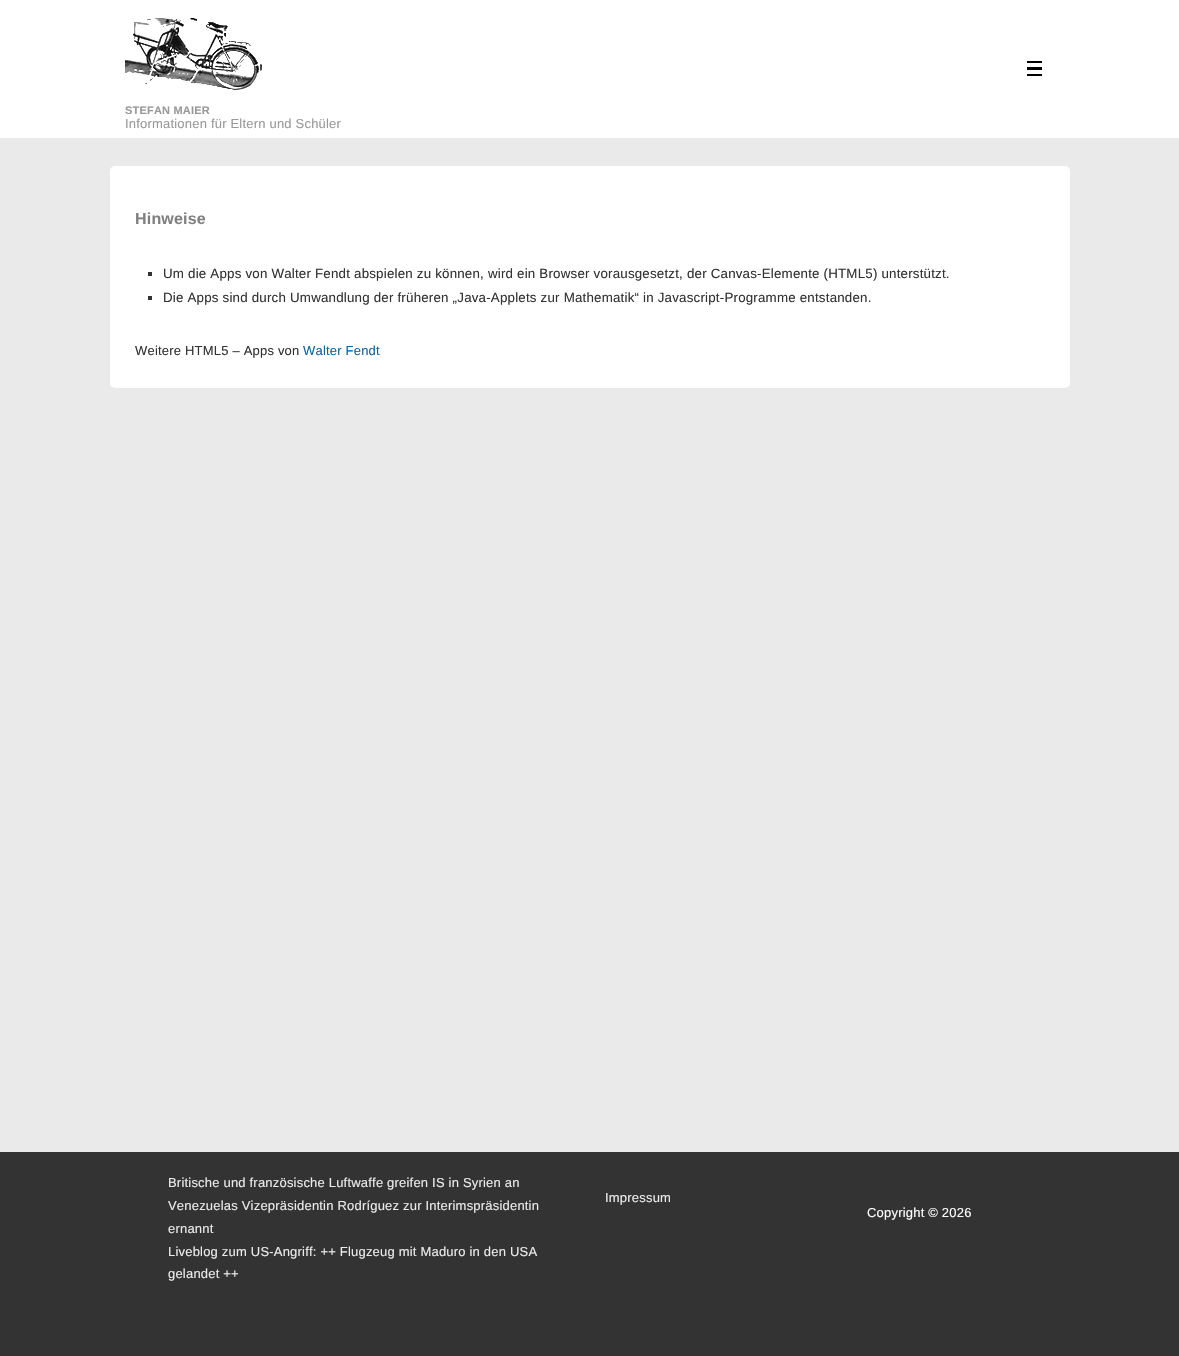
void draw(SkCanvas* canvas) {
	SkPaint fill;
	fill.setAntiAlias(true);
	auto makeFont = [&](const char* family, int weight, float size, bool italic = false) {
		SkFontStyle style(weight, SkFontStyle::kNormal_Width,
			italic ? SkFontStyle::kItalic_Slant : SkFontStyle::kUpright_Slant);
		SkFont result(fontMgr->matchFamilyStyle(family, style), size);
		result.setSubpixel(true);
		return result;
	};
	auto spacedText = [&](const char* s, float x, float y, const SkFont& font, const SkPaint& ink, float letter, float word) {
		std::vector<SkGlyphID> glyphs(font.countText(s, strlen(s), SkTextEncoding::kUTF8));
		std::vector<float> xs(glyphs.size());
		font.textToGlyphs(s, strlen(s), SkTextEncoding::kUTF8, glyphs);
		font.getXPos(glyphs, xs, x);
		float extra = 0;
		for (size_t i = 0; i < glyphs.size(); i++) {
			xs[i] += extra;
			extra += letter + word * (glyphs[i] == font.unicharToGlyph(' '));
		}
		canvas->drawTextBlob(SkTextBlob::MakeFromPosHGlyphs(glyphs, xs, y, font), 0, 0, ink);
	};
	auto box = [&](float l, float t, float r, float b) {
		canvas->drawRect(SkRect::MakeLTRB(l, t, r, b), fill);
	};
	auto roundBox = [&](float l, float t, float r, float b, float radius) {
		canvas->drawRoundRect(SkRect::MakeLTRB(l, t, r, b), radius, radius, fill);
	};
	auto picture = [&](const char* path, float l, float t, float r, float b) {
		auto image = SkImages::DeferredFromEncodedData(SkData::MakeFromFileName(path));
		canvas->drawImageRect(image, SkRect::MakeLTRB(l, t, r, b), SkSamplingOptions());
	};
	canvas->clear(0xFFEAEAEA);
	fill.setColor(0xFFFFFFFF);
	box(0, 0, 1179, 138);
	fill.setColor(0xFF000000);
	box(1027, 61, 1042, 63);
	box(1027, 67, 1042, 70);
	box(1027, 74, 1042, 76);
	picture("image0.png", 125, 18, 262, 90);
	fill.setColor(0xFFFFFFFF);
	roundBox(110, 166, 1070, 388, 5);
	fill.setColor(0xFF333333);
	box(148, 272, 152, 276);
	box(148, 296, 152, 300);
	box(0, 1152, 1179, 1356);
	auto font1 = makeFont("Liberation Sans", 700, 11);
	fill.setColor(0xFF999999);
	spacedText("STEFAN MAIER", 125, 114, font1, fill, 0.2f, 0);
	auto font2 = makeFont("Liberation Sans", 400, 13);
	spacedText("Informationen für Eltern und Schüler", 125, 128, font2, fill, 0.2f, 0);
	auto font3 = makeFont("Liberation Sans", 700, 16);
	fill.setColor(0xFF808080);
	spacedText("Hinweise", 135, 224, font3, fill, 0.2f, 0);
	auto font4 = makeFont("Liberation Sans", 400, 13.33f);
	fill.setColor(0xFF333333);
	spacedText("Um die Apps von Walter Fendt abspielen zu können, wird ein Browser vorausgesetzt, der Canvas-Elemente (HTML5) unterstützt.", 163, 278, font4, fill, 0.2f, 0);
	spacedText("Die Apps sind durch Umwandlung der früheren „Java-Applets zur Mathematik“ in Javascript-Programme entstanden.", 163, 302, font4, fill, 0.2f, 0);
	spacedText("Weitere HTML5 – Apps von", 135, 355, font2, fill, 0.2f, 0);
	fill.setColor(0xFF10659C);
	spacedText("Walter Fendt", 303, 355, font2, fill, 0.2f, 0);
	fill.setColor(0xFFEAEAEA);
	spacedText("Britische und französische Luftwaffe greifen IS in Syrien an", 168, 1187, font2, fill, 0.2f, 0);
	spacedText("Venezuelas Vizepräsidentin Rodríguez zur Interimspräsidentin", 168, 1210, font2, fill, 0.2f, 0);
	spacedText("ernannt", 168, 1233, font2, fill, 0.2f, 0);
	spacedText("Liveblog zum US-Angriff: ++ Flugzeug mit Maduro in den USA", 168, 1256, font2, fill, 0.2f, 0);
	spacedText("gelandet ++", 168, 1278, font2, fill, 0.2f, 0);
	spacedText("Impressum", 605, 1202, font2, fill, 0.2f, 0);
	fill.setColor(0xFFFFFFFF);
	spacedText("Copyright © 2026", 867, 1217, font2, fill, 0.2f, 0);
}
